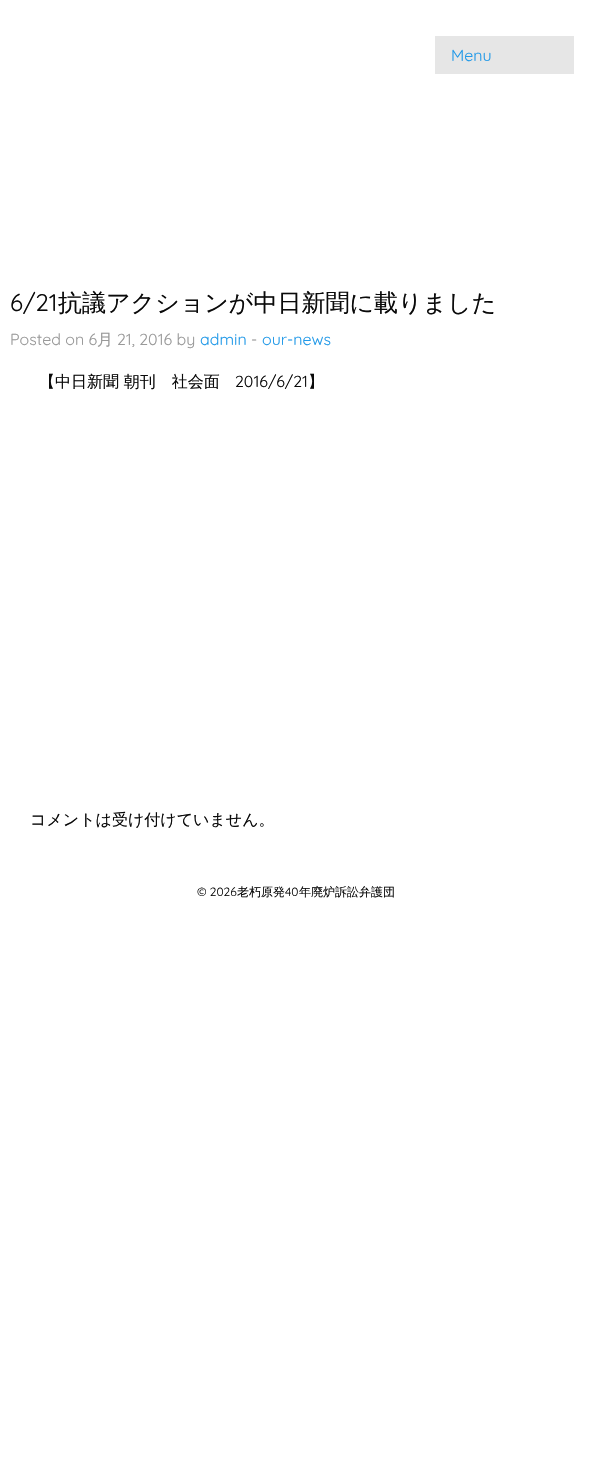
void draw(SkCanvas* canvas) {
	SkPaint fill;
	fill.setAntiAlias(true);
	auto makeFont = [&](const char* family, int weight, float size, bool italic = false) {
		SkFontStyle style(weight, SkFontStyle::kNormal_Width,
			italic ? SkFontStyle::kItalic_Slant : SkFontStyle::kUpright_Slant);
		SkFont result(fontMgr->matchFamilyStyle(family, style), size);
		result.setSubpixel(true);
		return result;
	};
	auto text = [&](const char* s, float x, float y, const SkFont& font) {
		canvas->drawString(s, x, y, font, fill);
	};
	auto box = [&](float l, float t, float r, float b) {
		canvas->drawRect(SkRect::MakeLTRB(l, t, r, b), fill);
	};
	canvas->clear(0xFFFFFFFF);
	fill.setColor(0xFFE6E6E6);
	box(435, 36, 574, 74);
	auto font1 = makeFont("Quicksand", 400, 16);
	fill.setColor(0xFF2199E8);
	text("Menu", 451, 61, font1);
	auto font2 = makeFont("Quicksand", 400, 24);
	fill.setColor(0xFF0A0A0A);
	text("6/21", 10, 311, font2);
	auto font3 = makeFont("WenQuanYi Zen Hei", 500, 24);
	text("抗議アクションが中日新聞に載りました", 58, 311, font3);
	fill.setColor(0xFF999999);
	text("Posted on 6", 10, 345, font1);
	auto font4 = makeFont("WenQuanYi Zen Hei", 500, 16);
	text("月", 97, 345, font4);
	text("21, 2016 by", 117, 345, font1);
	fill.setColor(0xFF2199E8);
	text("admin", 200, 345, font1);
	fill.setColor(0xFF999999);
	text("-", 251, 345, font1);
	fill.setColor(0xFF2199E8);
	text("our-news", 262, 345, font1);
	fill.setColor(0xFF0A0A0A);
	text("【中日新聞 朝刊　社会面", 39, 387, font4);
	text("2016/6/21", 235, 387, font1);
	text("】", 308, 387, font4);
	text("コメントは受け付けていません。", 30, 825, font4);
	auto font5 = makeFont("Quicksand", 400, 12);
	text("© 2026", 197, 896, font5);
	auto font6 = makeFont("WenQuanYi Zen Hei", 500, 12);
	text("老朽原発", 237, 896, font6);
	text("40", 285, 896, font5);
	text("年廃炉訴訟弁護団", 299, 896, font6);
}
